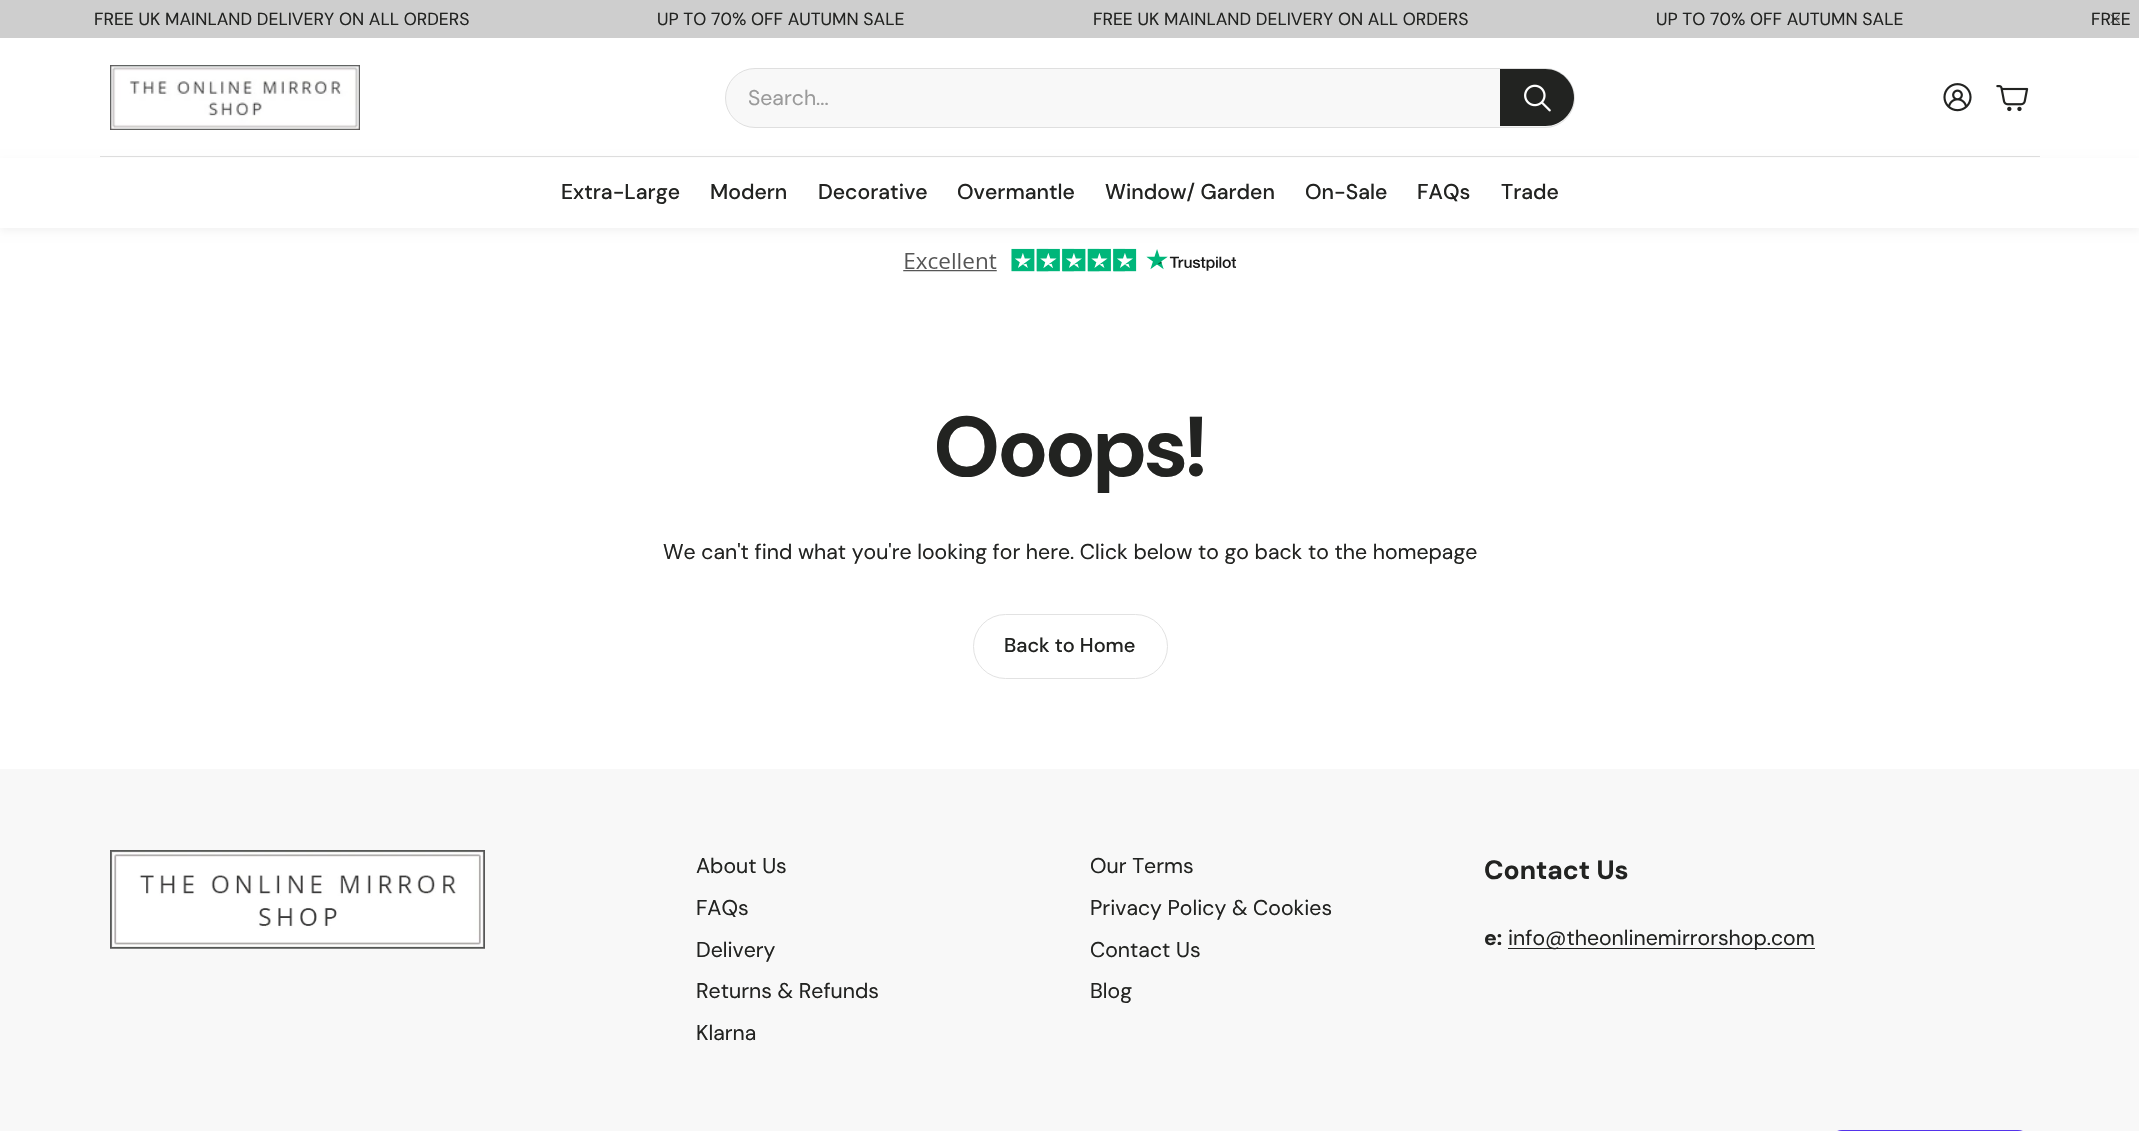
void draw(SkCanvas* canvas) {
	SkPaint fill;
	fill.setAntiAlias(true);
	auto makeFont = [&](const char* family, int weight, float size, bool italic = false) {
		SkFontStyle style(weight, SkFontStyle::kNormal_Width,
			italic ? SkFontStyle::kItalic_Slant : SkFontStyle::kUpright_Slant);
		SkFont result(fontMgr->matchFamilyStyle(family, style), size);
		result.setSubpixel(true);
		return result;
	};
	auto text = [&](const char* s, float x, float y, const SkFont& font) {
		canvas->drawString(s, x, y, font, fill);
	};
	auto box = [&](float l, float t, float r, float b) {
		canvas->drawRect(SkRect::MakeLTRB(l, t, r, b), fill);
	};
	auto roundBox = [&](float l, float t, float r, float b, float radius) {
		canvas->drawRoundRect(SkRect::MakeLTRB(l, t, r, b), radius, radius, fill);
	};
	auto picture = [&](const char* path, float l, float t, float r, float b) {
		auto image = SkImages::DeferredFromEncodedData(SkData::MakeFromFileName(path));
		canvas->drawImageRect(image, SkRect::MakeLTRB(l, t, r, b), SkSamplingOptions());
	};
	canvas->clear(0xFFFFFFFF);
	fill.setColor(0xFFCECECE);
	box(0, 0, 2139, 38);
	picture("image1.png", 110, 65, 360, 130);
	fill.setColor(0xFFF8F8F8);
	canvas->drawRoundRect(SkRect::MakeLTRB(725.5f, 68.5f, 1574.5f, 127.5f), 29.5f, 29.5f, fill);
	fill.setStyle(SkPaint::kStroke_Style);
	fill.setStrokeWidth(1);
	fill.setColor(0xFFDFDFDF);
	canvas->drawRoundRect(SkRect::MakeLTRB(725.5f, 68.5f, 1574.5f, 127.5f), 29.5f, 29.5f, fill);
	canvas->save();
	canvas->clipPath(SkPathBuilder().moveTo(754.5f, 69).lineTo(1545.5f, 69).cubicTo(1561, 69, 1574, 82, 1574, 97.5f).cubicTo(1574, 113, 1561, 126, 1545.5f, 126).lineTo(754.5f, 126).cubicTo(739, 126, 726, 113, 726, 97.5f).cubicTo(726, 82, 739, 69, 754.5f, 69).close().detach(), true);
	fill.setStyle(SkPaint::kFill_Style);
	fill.setColor(0xFF222321);
	canvas->drawPath(SkPathBuilder().moveTo(1500, 68).lineTo(1545, 68).cubicTo(1561.5f, 68, 1575, 81.5f, 1575, 98).cubicTo(1575, 114.5f, 1561.5f, 128, 1545, 128).lineTo(1500, 128).close().detach(), fill);
	canvas->restore();
	picture("image2.png", 1524, 84, 1551, 112);
	picture("image3.png", 1943, 83, 1972, 112);
	picture("image4.png", 1996, 85, 2029, 112);
	fill.setColor(0xFFDFDFDF);
	box(100, 156, 2040, 157);
	fill.setColor(0x0D000000);
	fill.setMaskFilter(SkMaskFilter::MakeBlur(kNormal_SkBlurStyle, 4));
	canvas->drawRect(SkRect::MakeLTRB(0, 161, 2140, 231), fill);
	fill.setMaskFilter(nullptr);
	fill.setColor(0xFFFFFFFF);
	box(0, 158, 2139, 228);
	picture("image5.png", 903, 248, 1237, 272);
	fill.setStyle(SkPaint::kStroke_Style);
	fill.setColor(0xFFE2E2E2);
	canvas->drawRoundRect(SkRect::MakeLTRB(973.5f, 614.5f, 1167.5f, 678.5f), 32, 32, fill);
	fill.setStyle(SkPaint::kFill_Style);
	fill.setColor(0xFFF8F8F8);
	box(0, 769, 2139, 1131);
	picture("image6.png", 110, 850, 485, 949);
	fill.setColor(0xFF222321);
	box(1508, 948, 1815, 949);
	fill.setColor(0xFF5433EB);
	roundBox(1830, 1130, 2030, 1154, 22.5f);
	auto font1 = makeFont("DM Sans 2", 400, 17.5f);
	fill.setColor(0xFF222321);
	text("FREE UK MAINLAND DELIVERY ON ALL ORDERS", 94, 25, font1);
	text("UP TO 70% OFF AUTUMN SALE", 657, 25, font1);
	text("FREE UK MAINLAND DELIVERY ON ALL ORDERS", 1093, 25, font1);
	text("UP TO 70% OFF AUTUMN SALE", 1656, 25, font1);
	text("FREE", 2091, 25, font1);
	picture("image0.png", 2110, 14, 2120, 24);
	auto font2 = makeFont("DM Sans", 400, 21.25f);
	fill.setColor(0xFF9A9A9A);
	text("Search...", 748, 105, font2);
	auto font3 = makeFont("DM Sans 2", 500, 21.25f);
	fill.setColor(0xFF222321);
	text("Extra-Large", 561, 199, font3);
	text("Modern", 710, 199, font3);
	text("Decorative", 818, 199, font3);
	text("Overmantle", 957, 199, font3);
	text("Window/ Garden", 1105, 199, font3);
	text("On-Sale", 1305, 199, font3);
	text("FAQs", 1417, 199, font3);
	text("Trade", 1501, 199, font3);
	auto font4 = makeFont("DM Sans", 700, 84.5f);
	text("Ooops!", 934, 476, font4);
	text("We can't find what you're looking for here. Click below to go back to the homepage", 663, 559, font2);
	auto font5 = makeFont("DM Sans", 500, 20);
	text("Back to Home", 1004, 652, font5);
	text("About Us", 696, 873, font2);
	text("FAQs", 696, 915, font2);
	text("Delivery", 696, 957, font2);
	text("Returns & Refunds", 696, 998, font2);
	text("Klarna", 696, 1040, font2);
	text("Our Terms", 1090, 873, font2);
	text("Privacy Policy & Cookies", 1090, 915, font2);
	text("Contact Us", 1090, 957, font2);
	text("Blog", 1090, 998, font2);
	auto font6 = makeFont("DM Sans 2", 700, 26.5f);
	text("Contact Us", 1484, 879, font6);
	auto font7 = makeFont("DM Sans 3", 700, 21.25f);
	text("e:", 1484, 945, font7);
	text("info@theonlinemirrorshop.com", 1508, 945, font2);
}
